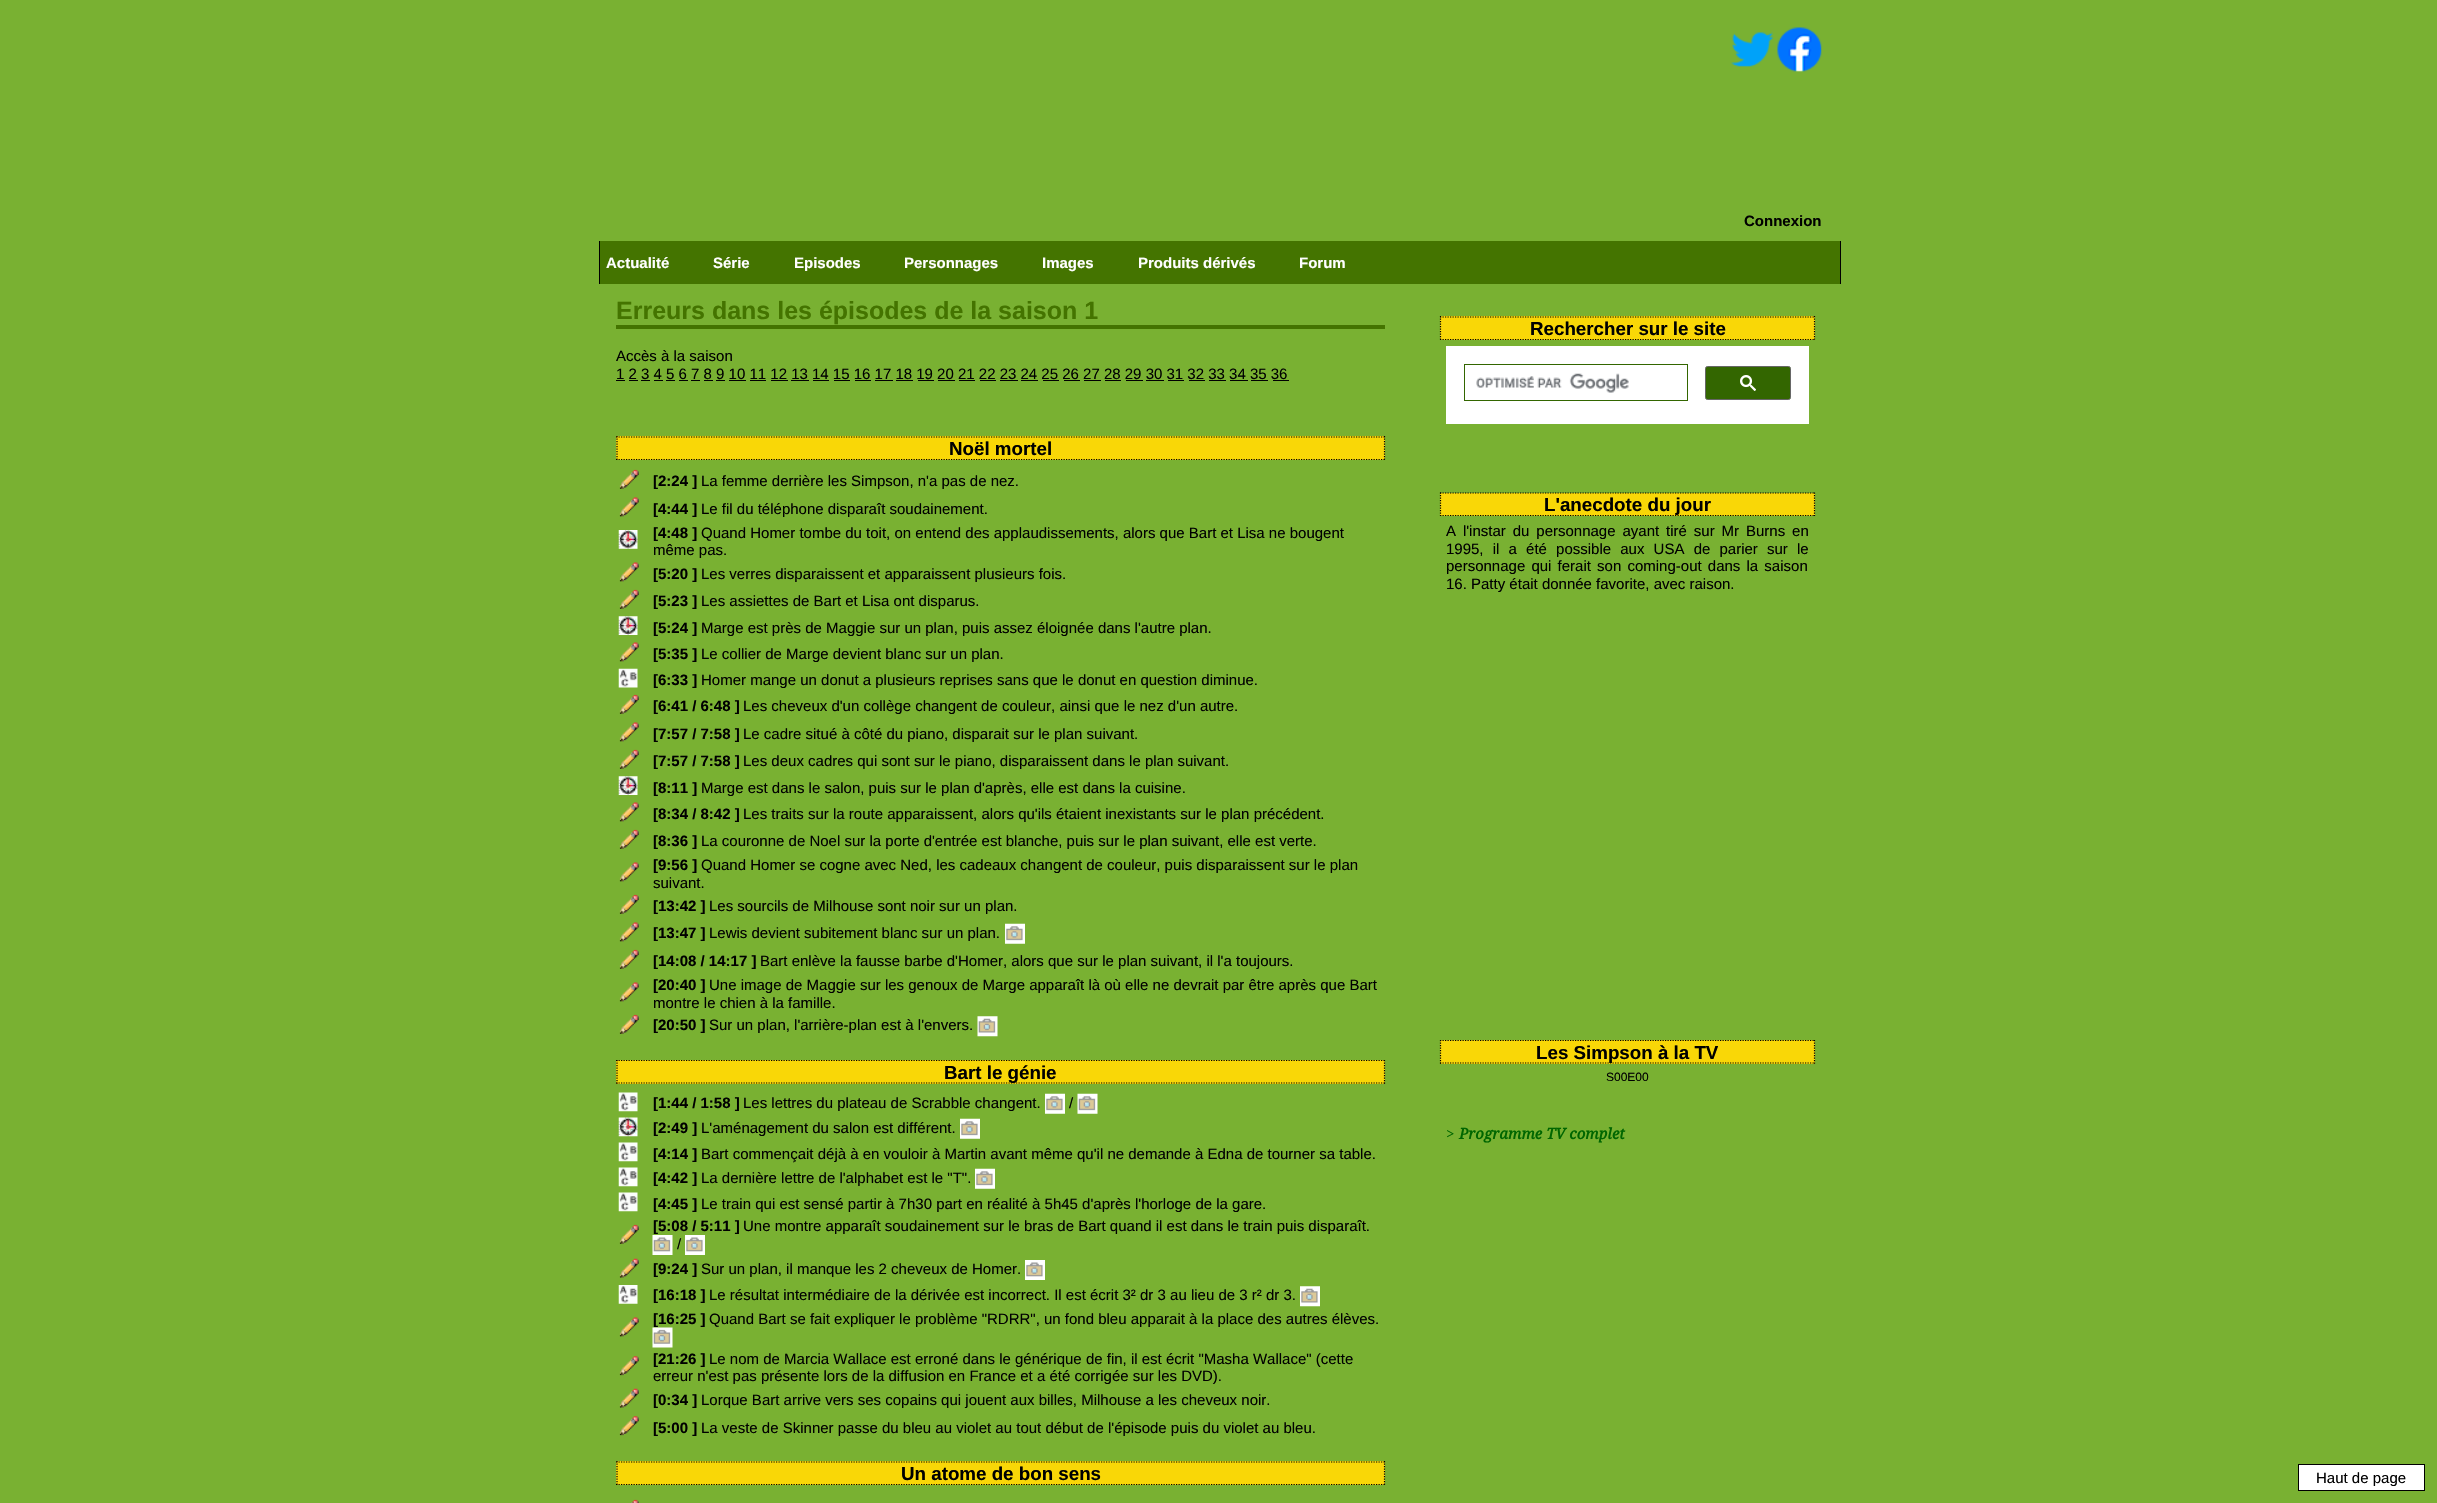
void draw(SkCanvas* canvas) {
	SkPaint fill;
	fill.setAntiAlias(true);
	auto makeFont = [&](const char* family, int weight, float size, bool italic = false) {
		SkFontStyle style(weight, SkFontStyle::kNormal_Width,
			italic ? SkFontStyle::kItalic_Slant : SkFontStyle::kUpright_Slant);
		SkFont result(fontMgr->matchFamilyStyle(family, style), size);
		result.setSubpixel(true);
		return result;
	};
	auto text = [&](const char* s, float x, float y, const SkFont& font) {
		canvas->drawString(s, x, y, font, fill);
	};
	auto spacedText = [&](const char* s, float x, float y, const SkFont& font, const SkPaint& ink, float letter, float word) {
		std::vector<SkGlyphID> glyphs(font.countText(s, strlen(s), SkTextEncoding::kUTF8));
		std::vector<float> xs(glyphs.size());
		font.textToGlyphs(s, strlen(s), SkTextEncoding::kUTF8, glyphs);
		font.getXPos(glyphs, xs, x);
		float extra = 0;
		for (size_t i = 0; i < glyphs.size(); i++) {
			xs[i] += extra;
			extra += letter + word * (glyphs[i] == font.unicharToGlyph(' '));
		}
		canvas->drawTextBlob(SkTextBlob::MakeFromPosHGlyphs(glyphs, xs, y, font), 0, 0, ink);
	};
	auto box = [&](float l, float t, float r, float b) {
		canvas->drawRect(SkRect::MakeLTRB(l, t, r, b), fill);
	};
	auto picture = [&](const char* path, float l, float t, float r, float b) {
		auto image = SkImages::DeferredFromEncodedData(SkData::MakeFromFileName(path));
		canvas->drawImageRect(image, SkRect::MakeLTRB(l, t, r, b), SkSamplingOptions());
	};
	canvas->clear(0xFF79B132);
	picture("image0.png", 1731, 32, 1773, 67);
	picture("image1.png", 1777, 27, 1822, 72);
	fill.setColor(0xFF447400);
	box(600, 241, 1840, 284);
	fill.setColor(0xFF000000);
	box(1840, 241, 1841, 284);
	box(599, 241, 600, 284);
	fill.setColor(0xFF447400);
	box(616, 325, 1385, 329);
	fill.setColor(0xFF000000);
	box(616, 380, 625, 381);
	box(629, 380, 638, 381);
	box(641, 380, 650, 381);
	box(654, 380, 663, 381);
	box(666, 380, 675, 381);
	box(679, 380, 688, 381);
	box(691, 380, 700, 381);
	box(704, 380, 713, 381);
	box(716, 380, 725, 381);
	box(729, 380, 746, 381);
	box(750, 380, 766, 381);
	box(771, 380, 788, 381);
	box(791, 380, 809, 381);
	box(813, 380, 829, 381);
	box(834, 380, 850, 381);
	box(855, 380, 871, 381);
	box(875, 380, 893, 381);
	box(896, 380, 913, 381);
	box(918, 380, 934, 381);
	box(938, 380, 955, 381);
	box(959, 380, 975, 381);
	box(980, 380, 996, 381);
	box(1000, 380, 1018, 381);
	box(1021, 380, 1038, 381);
	box(1043, 380, 1059, 381);
	box(1064, 380, 1080, 381);
	box(1084, 380, 1101, 381);
	box(1105, 380, 1121, 381);
	box(1126, 380, 1143, 381);
	box(1146, 380, 1164, 381);
	box(1168, 380, 1184, 381);
	box(1189, 380, 1205, 381);
	box(1209, 380, 1226, 381);
	box(1230, 380, 1248, 381);
	box(1251, 380, 1268, 381);
	box(1273, 380, 1289, 381);
	fill.setColor(0xFFF9D707);
	box(616, 436, 1385, 460);
	fill.setStyle(SkPaint::kStroke_Style);
	fill.setStrokeWidth(1.2f);
	fill.setColor(0xFF000000);
	fill.setPathEffect(SkDashPathEffect::Make({{1.25f, 1.25f}}, 0));
	canvas->drawPath(SkPathBuilder().moveTo(616, 437).lineTo(1385, 437).detach(), fill);
	fill.setPathEffect(nullptr);
	fill.setPathEffect(SkDashPathEffect::Make({{1.25f, 1.25f}}, 0));
	canvas->drawPath(SkPathBuilder().moveTo(1384.5f, 436).lineTo(1384.5f, 460).detach(), fill);
	fill.setPathEffect(nullptr);
	fill.setPathEffect(SkDashPathEffect::Make({{1.25f, 1.25f}}, 0));
	canvas->drawPath(SkPathBuilder().moveTo(616, 459.5f).lineTo(1385, 459.5f).detach(), fill);
	fill.setPathEffect(nullptr);
	fill.setPathEffect(SkDashPathEffect::Make({{1.25f, 1.25f}}, 0));
	canvas->drawPath(SkPathBuilder().moveTo(617, 436).lineTo(617, 460).detach(), fill);
	fill.setPathEffect(nullptr);
	picture("image2.png", 619, 469, 639, 489);
	picture("image3.png", 619, 497, 639, 517);
	picture("image4.png", 618, 530, 638, 549);
	picture("image3.png", 619, 562, 639, 582);
	picture("image2.png", 619, 589, 639, 609);
	picture("image5.png", 618, 616, 638, 635);
	picture("image3.png", 619, 642, 639, 662);
	picture("image6.png", 618, 668, 638, 688);
	picture("image2.png", 619, 694, 639, 714);
	picture("image3.png", 619, 722, 639, 742);
	picture("image2.png", 619, 749, 639, 769);
	picture("image7.png", 618, 776, 638, 795);
	picture("image3.png", 619, 802, 639, 822);
	picture("image2.png", 619, 829, 639, 849);
	picture("image3.png", 619, 862, 639, 882);
	picture("image2.png", 619, 894, 639, 914);
	picture("image3.png", 619, 922, 639, 942);
	picture("image8.png", 1005, 923, 1025, 944);
	picture("image2.png", 619, 949, 639, 969);
	picture("image3.png", 619, 982, 639, 1002);
	picture("image2.png", 619, 1014, 639, 1034);
	picture("image9.png", 977, 1016, 998, 1037);
	fill.setStyle(SkPaint::kFill_Style);
	fill.setColor(0xFFF9D707);
	box(616, 1060, 1385, 1084);
	fill.setStyle(SkPaint::kStroke_Style);
	fill.setColor(0xFF000000);
	fill.setPathEffect(SkDashPathEffect::Make({{1.25f, 1.25f}}, 0));
	canvas->drawPath(SkPathBuilder().moveTo(616, 1060.5f).lineTo(1385, 1060.5f).detach(), fill);
	fill.setPathEffect(nullptr);
	fill.setPathEffect(SkDashPathEffect::Make({{1.25f, 1.25f}}, 0));
	canvas->drawPath(SkPathBuilder().moveTo(1384.5f, 1060).lineTo(1384.5f, 1084).detach(), fill);
	fill.setPathEffect(nullptr);
	fill.setPathEffect(SkDashPathEffect::Make({{1.25f, 1.25f}}, 0));
	canvas->drawPath(SkPathBuilder().moveTo(616, 1083).lineTo(1385, 1083).detach(), fill);
	fill.setPathEffect(nullptr);
	fill.setPathEffect(SkDashPathEffect::Make({{1.25f, 1.25f}}, 0));
	canvas->drawPath(SkPathBuilder().moveTo(617, 1060).lineTo(617, 1084).detach(), fill);
	fill.setPathEffect(nullptr);
	picture("image10.png", 618, 1092, 638, 1112);
	picture("image8.png", 1045, 1093, 1065, 1114);
	picture("image11.png", 1077, 1093, 1098, 1114);
	picture("image12.png", 618, 1117, 638, 1137);
	picture("image8.png", 960, 1118, 980, 1139);
	picture("image10.png", 618, 1142, 638, 1162);
	picture("image13.png", 618, 1167, 638, 1187);
	picture("image14.png", 975, 1168, 995, 1189);
	picture("image10.png", 618, 1192, 638, 1212);
	picture("image2.png", 619, 1224, 639, 1244);
	picture("image15.png", 652, 1235, 673, 1255);
	picture("image16.png", 685, 1235, 705, 1255);
	picture("image17.png", 619, 1258, 639, 1278);
	picture("image16.png", 1025, 1260, 1045, 1280);
	picture("image18.png", 618, 1285, 638, 1304);
	picture("image19.png", 1300, 1286, 1320, 1307);
	picture("image3.png", 619, 1317, 639, 1337);
	picture("image21.png", 619, 1356, 639, 1376);
	picture("image17.png", 619, 1388, 639, 1408);
	picture("image21.png", 619, 1416, 639, 1436);
	fill.setStyle(SkPaint::kFill_Style);
	fill.setColor(0xFFF9D707);
	box(616, 1461, 1385, 1485);
	fill.setStyle(SkPaint::kStroke_Style);
	fill.setColor(0xFF000000);
	fill.setPathEffect(SkDashPathEffect::Make({{1.25f, 1.25f}}, 0));
	canvas->drawPath(SkPathBuilder().moveTo(616, 1462).lineTo(1385, 1462).detach(), fill);
	fill.setPathEffect(nullptr);
	fill.setPathEffect(SkDashPathEffect::Make({{1.25f, 1.25f}}, 0));
	canvas->drawPath(SkPathBuilder().moveTo(1384.5f, 1461).lineTo(1384.5f, 1485).detach(), fill);
	fill.setPathEffect(nullptr);
	fill.setPathEffect(SkDashPathEffect::Make({{1.25f, 1.25f}}, 0));
	canvas->drawPath(SkPathBuilder().moveTo(616, 1484.5f).lineTo(1385, 1484.5f).detach(), fill);
	fill.setPathEffect(nullptr);
	fill.setPathEffect(SkDashPathEffect::Make({{1.25f, 1.25f}}, 0));
	canvas->drawPath(SkPathBuilder().moveTo(617, 1461).lineTo(617, 1485).detach(), fill);
	fill.setPathEffect(nullptr);
	picture("image22.png", 631, 1499, 639, 1503);
	fill.setStyle(SkPaint::kFill_Style);
	fill.setColor(0xFFF9D707);
	box(1440, 316, 1815, 340);
	fill.setStyle(SkPaint::kStroke_Style);
	fill.setColor(0xFF000000);
	fill.setPathEffect(SkDashPathEffect::Make({{1.25f, 1.25f}}, 0));
	canvas->drawPath(SkPathBuilder().moveTo(1440, 317).lineTo(1815, 317).detach(), fill);
	fill.setPathEffect(nullptr);
	fill.setPathEffect(SkDashPathEffect::Make({{1.25f, 1.25f}}, 0));
	canvas->drawPath(SkPathBuilder().moveTo(1814.5f, 316).lineTo(1814.5f, 340).detach(), fill);
	fill.setPathEffect(nullptr);
	fill.setPathEffect(SkDashPathEffect::Make({{1.25f, 1.25f}}, 0));
	canvas->drawPath(SkPathBuilder().moveTo(1440, 339.5f).lineTo(1815, 339.5f).detach(), fill);
	fill.setPathEffect(nullptr);
	fill.setPathEffect(SkDashPathEffect::Make({{1.25f, 1.25f}}, 0));
	canvas->drawPath(SkPathBuilder().moveTo(1440.5f, 316).lineTo(1440.5f, 340).detach(), fill);
	fill.setPathEffect(nullptr);
	fill.setStyle(SkPaint::kFill_Style);
	fill.setColor(0xFFFFFFFF);
	box(1446, 346, 1809, 424);
	fill.setStyle(SkPaint::kStroke_Style);
	fill.setStrokeWidth(1);
	fill.setColor(0xFF336600);
	canvas->drawRect(SkRect::MakeLTRB(1464.5f, 364.5f, 1687.5f, 400.5f), fill);
	picture("image23.png", 1476, 373, 1629, 393);
	fill.setStyle(SkPaint::kFill_Style);
	canvas->drawRoundRect(SkRect::MakeLTRB(1705.5f, 366.5f, 1790.5f, 399.5f), 2, 2, fill);
	fill.setStyle(SkPaint::kStroke_Style);
	fill.setColor(0xFF666666);
	canvas->drawRoundRect(SkRect::MakeLTRB(1705.5f, 366.5f, 1790.5f, 399.5f), 2, 2, fill);
	picture("image24.png", 1740, 375, 1756, 391);
	fill.setStyle(SkPaint::kFill_Style);
	fill.setColor(0xFFF9D707);
	box(1440, 493, 1815, 516);
	fill.setStyle(SkPaint::kStroke_Style);
	fill.setStrokeWidth(1.2f);
	fill.setColor(0xFF000000);
	fill.setPathEffect(SkDashPathEffect::Make({{1.25f, 1.25f}}, 0));
	canvas->drawPath(SkPathBuilder().moveTo(1440, 493).lineTo(1815, 493).detach(), fill);
	fill.setPathEffect(nullptr);
	fill.setPathEffect(SkDashPathEffect::Make({{1.25f, 1.25f}}, 0));
	canvas->drawPath(SkPathBuilder().moveTo(1814.5f, 492.5f).lineTo(1814.5f, 516).detach(), fill);
	fill.setPathEffect(nullptr);
	fill.setPathEffect(SkDashPathEffect::Make({{1.25f, 1.25f}}, 0));
	canvas->drawPath(SkPathBuilder().moveTo(1440, 515.5f).lineTo(1815, 515.5f).detach(), fill);
	fill.setPathEffect(nullptr);
	fill.setPathEffect(SkDashPathEffect::Make({{1.25f, 1.25f}}, 0));
	canvas->drawPath(SkPathBuilder().moveTo(1440.5f, 492.5f).lineTo(1440.5f, 516).detach(), fill);
	fill.setPathEffect(nullptr);
	fill.setStyle(SkPaint::kFill_Style);
	fill.setColor(0xFFF9D707);
	box(1440, 1040, 1815, 1064);
	fill.setStyle(SkPaint::kStroke_Style);
	fill.setColor(0xFF000000);
	fill.setPathEffect(SkDashPathEffect::Make({{1.25f, 1.25f}}, 0));
	canvas->drawPath(SkPathBuilder().moveTo(1440, 1040.5f).lineTo(1815, 1040.5f).detach(), fill);
	fill.setPathEffect(nullptr);
	fill.setPathEffect(SkDashPathEffect::Make({{1.25f, 1.25f}}, 0));
	canvas->drawPath(SkPathBuilder().moveTo(1814.5f, 1040).lineTo(1814.5f, 1064).detach(), fill);
	fill.setPathEffect(nullptr);
	fill.setPathEffect(SkDashPathEffect::Make({{1.25f, 1.25f}}, 0));
	canvas->drawPath(SkPathBuilder().moveTo(1440, 1063).lineTo(1815, 1063).detach(), fill);
	fill.setPathEffect(nullptr);
	fill.setPathEffect(SkDashPathEffect::Make({{1.25f, 1.25f}}, 0));
	canvas->drawPath(SkPathBuilder().moveTo(1440.5f, 1040).lineTo(1440.5f, 1064).detach(), fill);
	fill.setPathEffect(nullptr);
	fill.setStyle(SkPaint::kFill_Style);
	fill.setColor(0xFFFFFFFF);
	canvas->drawRect(SkRect::MakeLTRB(2298.5f, 1464.5f, 2424.5f, 1490.5f), fill);
	fill.setStyle(SkPaint::kStroke_Style);
	fill.setStrokeWidth(1);
	fill.setColor(0xFF000000);
	canvas->drawRect(SkRect::MakeLTRB(2298.5f, 1464.5f, 2424.5f, 1490.5f), fill);
	auto font1 = makeFont("Liberation Sans", 700, 15);
	fill.setStyle(SkPaint::kFill_Style);
	text("Connexion", 1744, 226, font1);
	fill.setColor(0xFFFFFFFF);
	text("Actualité", 606, 268, font1);
	text("Série", 713, 268, font1);
	text("Episodes", 794, 268, font1);
	text("Personnages", 904, 268, font1);
	text("Images", 1042, 268, font1);
	text("Produits dérivés", 1138, 268, font1);
	text("Forum", 1299, 268, font1);
	auto font2 = makeFont("Liberation Sans", 700, 25);
	fill.setColor(0xFF447400);
	text("Erreurs dans les épisodes de la saison 1", 616, 319, font2);
	auto font3 = makeFont("Liberation Sans", 400, 15);
	fill.setColor(0xFF000000);
	text("Accès à la saison", 616, 361, font3);
	text("1 2 3 4 5 6 7 8 9 10 11 12 13 14 15 16 17 18 19 20 21 22 23 24 25 26 27 28 29 30 31 32 33 34 35 36", 616, 379, font3);
	auto font4 = makeFont("Liberation Sans", 700, 18.75f);
	text("Noël mortel", 949, 455, font4);
	text("[2:24 ]", 653, 486, font1);
	text("La femme derrière les Simpson, n'a pas de nez.", 701, 486, font3);
	text("[4:44 ]", 653, 514, font1);
	text("Le fil du téléphone disparaît soudainement.", 701, 514, font3);
	text("[4:48 ]", 653, 538, font1);
	text("Quand Homer tombe du toit, on entend des applaudissements, alors que Bart et Lisa ne bougent", 701, 538, font3);
	text("même pas.", 653, 555, font3);
	text("[5:20 ]", 653, 579, font1);
	text("Les verres disparaissent et apparaissent plusieurs fois.", 701, 579, font3);
	text("[5:23 ]", 653, 606, font1);
	text("Les assiettes de Bart et Lisa ont disparus.", 701, 606, font3);
	text("[5:24 ]", 653, 633, font1);
	text("Marge est près de Maggie sur un plan, puis assez éloignée dans l'autre plan.", 701, 633, font3);
	text("[5:35 ]", 653, 659, font1);
	text("Le collier de Marge devient blanc sur un plan.", 701, 659, font3);
	text("[6:33 ]", 653, 685, font1);
	text("Homer mange un donut a plusieurs reprises sans que le donut en question diminue.", 701, 685, font3);
	text("[6:41 / 6:48 ]", 653, 711, font1);
	text("Les cheveux d'un collège changent de couleur, ainsi que le nez d'un autre.", 743, 711, font3);
	text("[7:57 / 7:58 ]", 653, 739, font1);
	text("Le cadre situé à côté du piano, disparait sur le plan suivant.", 743, 739, font3);
	text("[7:57 / 7:58 ]", 653, 766, font1);
	text("Les deux cadres qui sont sur le piano, disparaissent dans le plan suivant.", 743, 766, font3);
	text("[8:11 ]", 653, 793, font1);
	text("Marge est dans le salon, puis sur le plan d'après, elle est dans la cuisine.", 701, 793, font3);
	text("[8:34 / 8:42 ]", 653, 819, font1);
	text("Les traits sur la route apparaissent, alors qu'ils étaient inexistants sur le plan précédent.", 743, 819, font3);
	text("[8:36 ]", 653, 846, font1);
	text("La couronne de Noel sur la porte d'entrée est blanche, puis sur le plan suivant, elle est verte.", 701, 846, font3);
	text("[9:56 ]", 653, 870, font1);
	text("Quand Homer se cogne avec Ned, les cadeaux changent de couleur, puis disparaissent sur le plan", 701, 870, font3);
	text("suivant.", 653, 888, font3);
	text("[13:42 ]", 653, 911, font1);
	text("Les sourcils de Milhouse sont noir sur un plan.", 709, 911, font3);
	text("[13:47 ]", 653, 938, font1);
	text("Lewis devient subitement blanc sur un plan.", 709, 938, font3);
	text("[14:08 / 14:17 ]", 653, 966, font1);
	text("Bart enlève la fausse barbe d'Homer, alors que sur le plan suivant, il l'a toujours.", 760, 966, font3);
	text("[20:40 ]", 653, 990, font1);
	text("Une image de Maggie sur les genoux de Marge apparaît là où elle ne devrait par être après que Bart", 709, 990, font3);
	text("montre le chien à la famille.", 653, 1008, font3);
	text("[20:50 ]", 653, 1030, font1);
	text("Sur un plan, l'arrière-plan est à l'envers.", 709, 1030, font3);
	text("Bart le génie", 944, 1079, font4);
	text("[1:44 / 1:58 ]", 653, 1108, font1);
	text("Les lettres du plateau de Scrabble changent.", 743, 1108, font3);
	text("/", 1069, 1108, font3);
	text("[2:49 ]", 653, 1133, font1);
	text("L'aménagement du salon est différent.", 701, 1133, font3);
	text("[4:14 ]", 653, 1159, font1);
	text("Bart commençait déjà à en vouloir à Martin avant même qu'il ne demande à Edna de tourner sa table.", 701, 1159, font3);
	text("[4:42 ]", 653, 1183, font1);
	text("La dernière lettre de l'alphabet est le \"T\".", 701, 1183, font3);
	text("[4:45 ]", 653, 1209, font1);
	text("Le train qui est sensé partir à 7h30 part en réalité à 5h45 d'après l'horloge de la gare.", 701, 1209, font3);
	text("[5:08 / 5:11 ]", 653, 1231, font1);
	text("Une montre apparaît soudainement sur le bras de Bart quand il est dans le train puis disparaît.", 743, 1231, font3);
	text("/", 677, 1249, font3);
	text("[9:24 ]", 653, 1274, font1);
	text("Sur un plan, il manque les 2 cheveux de Homer.", 701, 1274, font3);
	text("[16:18 ]", 653, 1300, font1);
	text("Le résultat intermédiaire de la dérivée est incorrect. Il est écrit 3² dr 3 au lieu de 3 r² dr 3.", 709, 1300, font3);
	text("[16:25 ]", 653, 1324, font1);
	text("Quand Bart se fait expliquer le problème \"RDRR\", un fond bleu apparait à la place des autres élèves.", 709, 1324, font3);
	picture("image20.png", 652, 1327, 673, 1348);
	text("[21:26 ]", 653, 1364, font1);
	text("Le nom de Marcia Wallace est erroné dans le générique de fin, il est écrit \"Masha Wallace\" (cette", 709, 1364, font3);
	text("erreur n'est pas présente lors de la diffusion en France et a été corrigée sur les DVD).", 653, 1381, font3);
	text("[0:34 ]", 653, 1405, font1);
	text("Lorque Bart arrive vers ses copains qui jouent aux billes, Milhouse a les cheveux noir.", 701, 1405, font3);
	text("[5:00 ]", 653, 1433, font1);
	text("La veste de Skinner passe du bleu au violet au tout début de l'épisode puis du violet au bleu.", 701, 1433, font3);
	text("Un atome de bon sens", 901, 1480, font4);
	text("Rechercher sur le site", 1530, 335, font4);
	text("L'anecdote du jour", 1544, 511, font4);
	spacedText("A l'instar du personnage ayant tiré sur Mr Burns en", 1446, 536, font3, fill, 0, 2.75f);
	spacedText("1995, il a été possible aux USA de parier sur le", 1446, 554, font3, fill, 0, 5);
	spacedText("personnage qui ferait son coming-out dans la saison", 1446, 571, font3, fill, 0, 2);
	text("16. Patty était donnée favorite, avec raison.", 1446, 589, font3);
	text("Les Simpson à la TV", 1536, 1059, font4);
	auto font5 = makeFont("Liberation Sans", 400, 12);
	text("S00E00", 1606, 1081, font5);
	auto font6 = makeFont("Droid Serif", 400, 15, true);
	fill.setColor(0xFF006600);
	text(">", 1446, 1139, font6);
	auto font7 = makeFont("Droid Serif", 700, 15, true);
	text("Programme TV complet", 1459, 1139, font7);
	fill.setColor(0xFF000000);
	text("Haut de page", 2316, 1483, font3);
}
